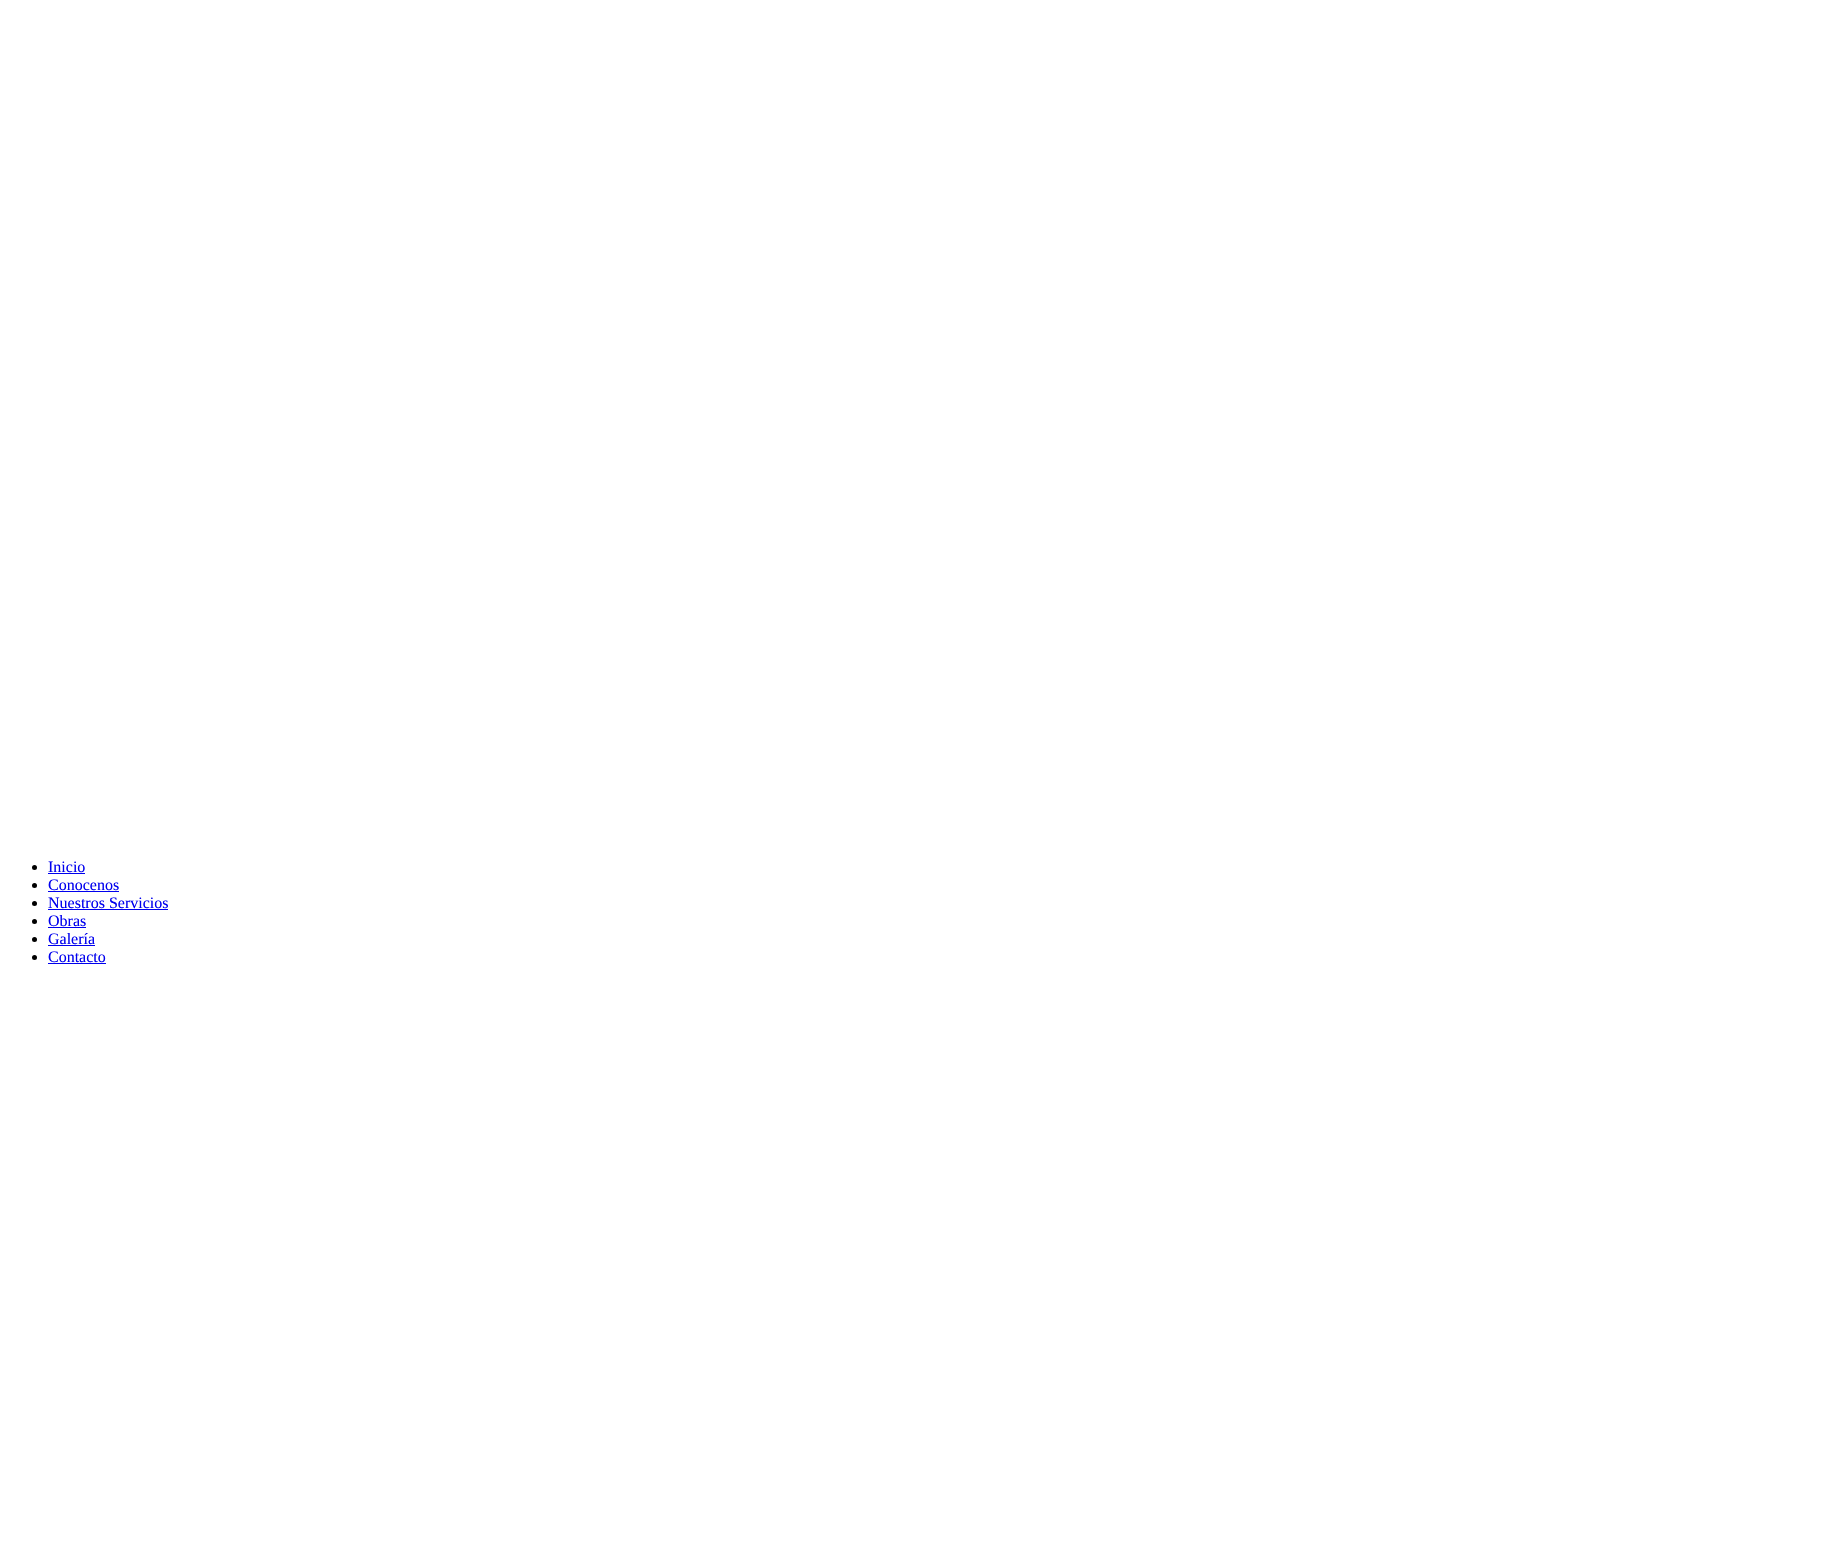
void draw(SkCanvas* canvas) {
	SkPaint fill;
	fill.setAntiAlias(true);
	auto makeFont = [&](const char* family, int weight, float size, bool italic = false) {
		SkFontStyle style(weight, SkFontStyle::kNormal_Width,
			italic ? SkFontStyle::kItalic_Slant : SkFontStyle::kUpright_Slant);
		SkFont result(fontMgr->matchFamilyStyle(family, style), size);
		result.setSubpixel(true);
		return result;
	};
	auto text = [&](const char* s, float x, float y, const SkFont& font) {
		canvas->drawString(s, x, y, font, fill);
	};
	auto box = [&](float l, float t, float r, float b) {
		canvas->drawRect(SkRect::MakeLTRB(l, t, r, b), fill);
	};
	canvas->clear(0xFFFFFFFF);
	fill.setColor(0xFF000000);
	canvas->drawCircle(34.5f, 867.5f, 2.5f, fill);
	fill.setColor(0xFF0000EE);
	box(48, 873, 85, 874);
	fill.setColor(0xFF000000);
	canvas->drawCircle(34.5f, 885.5f, 2.5f, fill);
	fill.setColor(0xFF0000EE);
	box(48, 891, 119, 892);
	fill.setColor(0xFF000000);
	canvas->drawCircle(34.5f, 903.5f, 2.5f, fill);
	fill.setColor(0xFF0000EE);
	box(48, 909, 168, 910);
	fill.setColor(0xFF000000);
	canvas->drawCircle(34.5f, 921.5f, 2.5f, fill);
	fill.setColor(0xFF0000EE);
	box(48, 927, 86, 928);
	fill.setColor(0xFF000000);
	canvas->drawCircle(34.5f, 939.5f, 2.5f, fill);
	fill.setColor(0xFF0000EE);
	box(48, 945, 95, 946);
	fill.setColor(0xFF000000);
	canvas->drawCircle(34.5f, 957.5f, 2.5f, fill);
	fill.setColor(0xFF0000EE);
	box(48, 963, 106, 964);
	auto font1 = makeFont("Liberation Serif", 400, 16);
	text("Inicio", 48, 872, font1);
	text("Conocenos", 48, 890, font1);
	text("Nuestros Servicios", 48, 908, font1);
	text("Obras", 48, 926, font1);
	text("Galería", 48, 944, font1);
	text("Contacto", 48, 962, font1);
}
